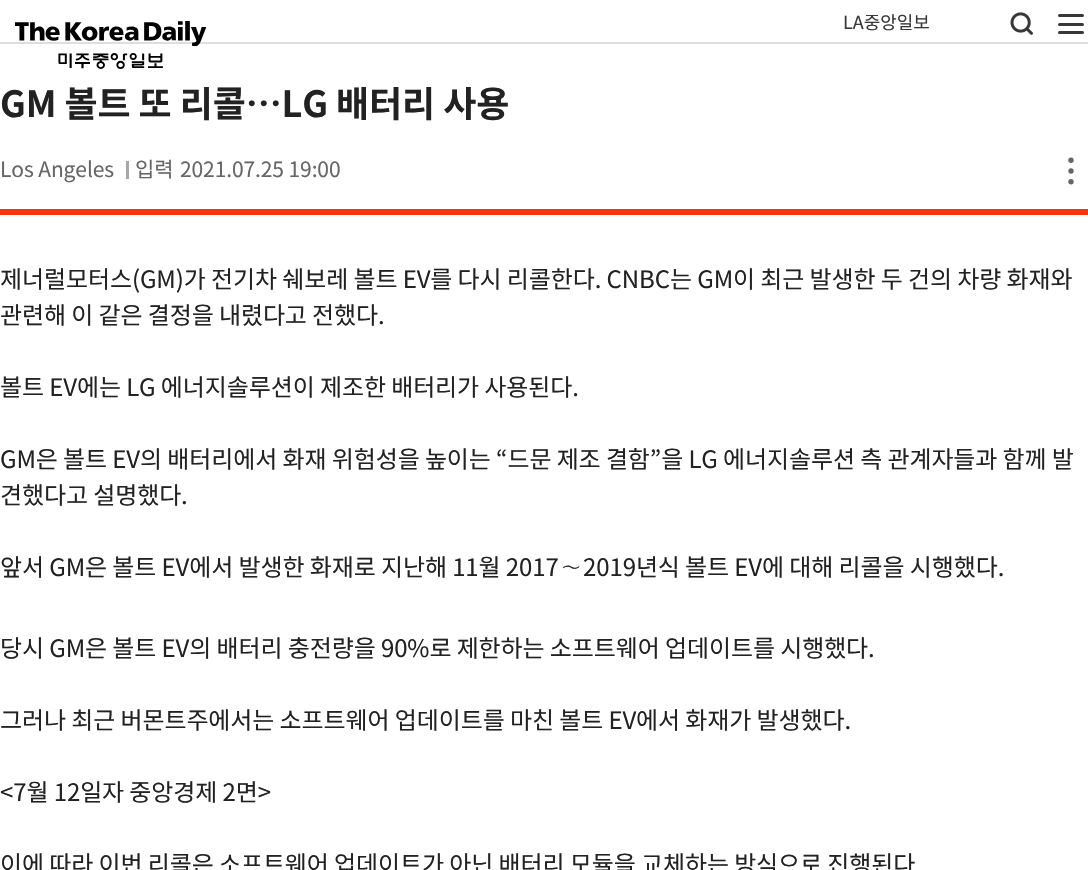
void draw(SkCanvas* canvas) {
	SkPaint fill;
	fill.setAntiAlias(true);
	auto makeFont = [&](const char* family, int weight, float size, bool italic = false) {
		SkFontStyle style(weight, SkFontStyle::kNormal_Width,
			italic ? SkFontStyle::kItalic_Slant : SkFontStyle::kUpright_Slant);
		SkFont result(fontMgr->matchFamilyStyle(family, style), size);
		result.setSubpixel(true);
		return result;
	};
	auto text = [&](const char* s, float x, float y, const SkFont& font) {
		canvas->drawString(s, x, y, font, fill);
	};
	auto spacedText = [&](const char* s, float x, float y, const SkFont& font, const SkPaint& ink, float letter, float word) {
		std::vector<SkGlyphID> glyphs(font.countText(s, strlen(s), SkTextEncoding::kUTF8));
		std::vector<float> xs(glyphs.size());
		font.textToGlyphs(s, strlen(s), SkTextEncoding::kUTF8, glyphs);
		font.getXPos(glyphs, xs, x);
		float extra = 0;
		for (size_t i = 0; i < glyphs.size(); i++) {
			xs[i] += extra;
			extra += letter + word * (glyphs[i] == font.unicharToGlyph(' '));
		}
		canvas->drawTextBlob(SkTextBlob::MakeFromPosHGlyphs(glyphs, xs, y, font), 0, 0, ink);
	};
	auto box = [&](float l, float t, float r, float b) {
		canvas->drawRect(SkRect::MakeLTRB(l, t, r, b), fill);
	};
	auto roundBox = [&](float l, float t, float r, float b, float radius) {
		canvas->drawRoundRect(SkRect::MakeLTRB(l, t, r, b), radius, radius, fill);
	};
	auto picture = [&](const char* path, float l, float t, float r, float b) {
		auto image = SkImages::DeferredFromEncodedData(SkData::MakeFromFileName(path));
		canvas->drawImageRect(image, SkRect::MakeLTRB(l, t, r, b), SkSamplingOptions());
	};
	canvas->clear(0xFFFFFFFF);
	fill.setColor(0xFFDEDEDE);
	box(0, 42, 1088, 44);
	picture("image0.png", 15, 21, 207, 69);
	picture("image1.png", 1010, 12, 1033, 35);
	fill.setColor(0xFF383838);
	roundBox(1058, 14, 1084, 17, 1.5f);
	roundBox(1058, 23, 1084, 26, 1.5f);
	roundBox(1058, 31, 1084, 34, 1.5f);
	fill.setColor(0xFFF6330A);
	box(0, 209, 1088, 215);
	fill.setColor(0xFFA7A7A7);
	box(126, 161, 129, 179);
	fill.setColor(0xFF666666);
	canvas->drawCircle(1071, 160.2f, 2.7f, fill);
	canvas->drawCircle(1071, 171, 2.7f, fill);
	canvas->drawCircle(1071, 181.8f, 2.7f, fill);
	auto font1 = makeFont("Noto Sans KR", 400, 18);
	fill.setColor(0xFF383838);
	text("LA중앙일보", 843, 29, font1);
	auto font2 = makeFont("Noto Sans KR", 700, 36);
	fill.setColor(0xFF222222);
	spacedText("GM 볼트 또 리콜…LG 배터리 사용", 0, 117, font2, fill, -0.1f, 0);
	auto font3 = makeFont("Noto Sans KR", 400, 21);
	fill.setColor(0xFF666666);
	spacedText("Los Angeles", 0, 177, font3, fill, -0.1f, 0);
	spacedText("입력", 135, 177, font3, fill, -0.1f, 0);
	spacedText("2021.07.25 19:00", 180, 177, font3, fill, -0.1f, 0);
	auto font4 = makeFont("Noto Sans KR", 400, 24);
	fill.setColor(0xFF222222);
	spacedText("제너럴모터스(GM)가 전기차 쉐보레 볼트 EV를 다시 리콜한다. CNBC는 GM이 최근 발생한 두 건의 차량 화재와", 0, 288, font4, fill, -0.1f, 0);
	spacedText("관련해 이 같은 결정을 내렸다고 전했다.", 0, 324, font4, fill, -0.1f, 0);
	spacedText("볼트 EV에는 LG 에너지솔루션이 제조한 배터리가 사용된다.", 0, 396, font4, fill, -0.1f, 0);
	spacedText("GM은 볼트 EV의 배터리에서 화재 위험성을 높이는 “드문 제조 결함”을 LG 에너지솔루션 측 관계자들과 함께 발", 0, 468, font4, fill, -0.1f, 0);
	spacedText("견했다고 설명했다.", 0, 504, font4, fill, -0.1f, 0);
	spacedText("앞서 GM은 볼트 EV에서 발생한 화재로 지난해 11월 2017", 0, 576, font4, fill, -0.1f, 0);
	auto font5 = makeFont("Dotum", 400, 24);
	spacedText("∼", 559, 576, font5, fill, -0.1f, 0);
	spacedText("2019년식 볼트 EV에 대해 리콜을 시행했다.", 583, 576, font4, fill, -0.1f, 0);
	spacedText("당시 GM은 볼트 EV의 배터리 충전량을 90%로 제한하는 소프트웨어 업데이트를 시행했다.", 0, 657, font4, fill, -0.1f, 0);
	spacedText("그러나 최근 버몬트주에서는 소프트웨어 업데이트를 마친 볼트 EV에서 화재가 발생했다.", 0, 729, font4, fill, -0.1f, 0);
	spacedText("<7월 12일자 중앙경제 2면>", 0, 801, font4, fill, -0.1f, 0);
	spacedText("이에 따라 이번 리콜은 소프트웨어 업데이트가 아닌 배터리 모듈을 교체하는 방식으로 진행된다", 0, 873, font4, fill, -0.1f, 0);
}
